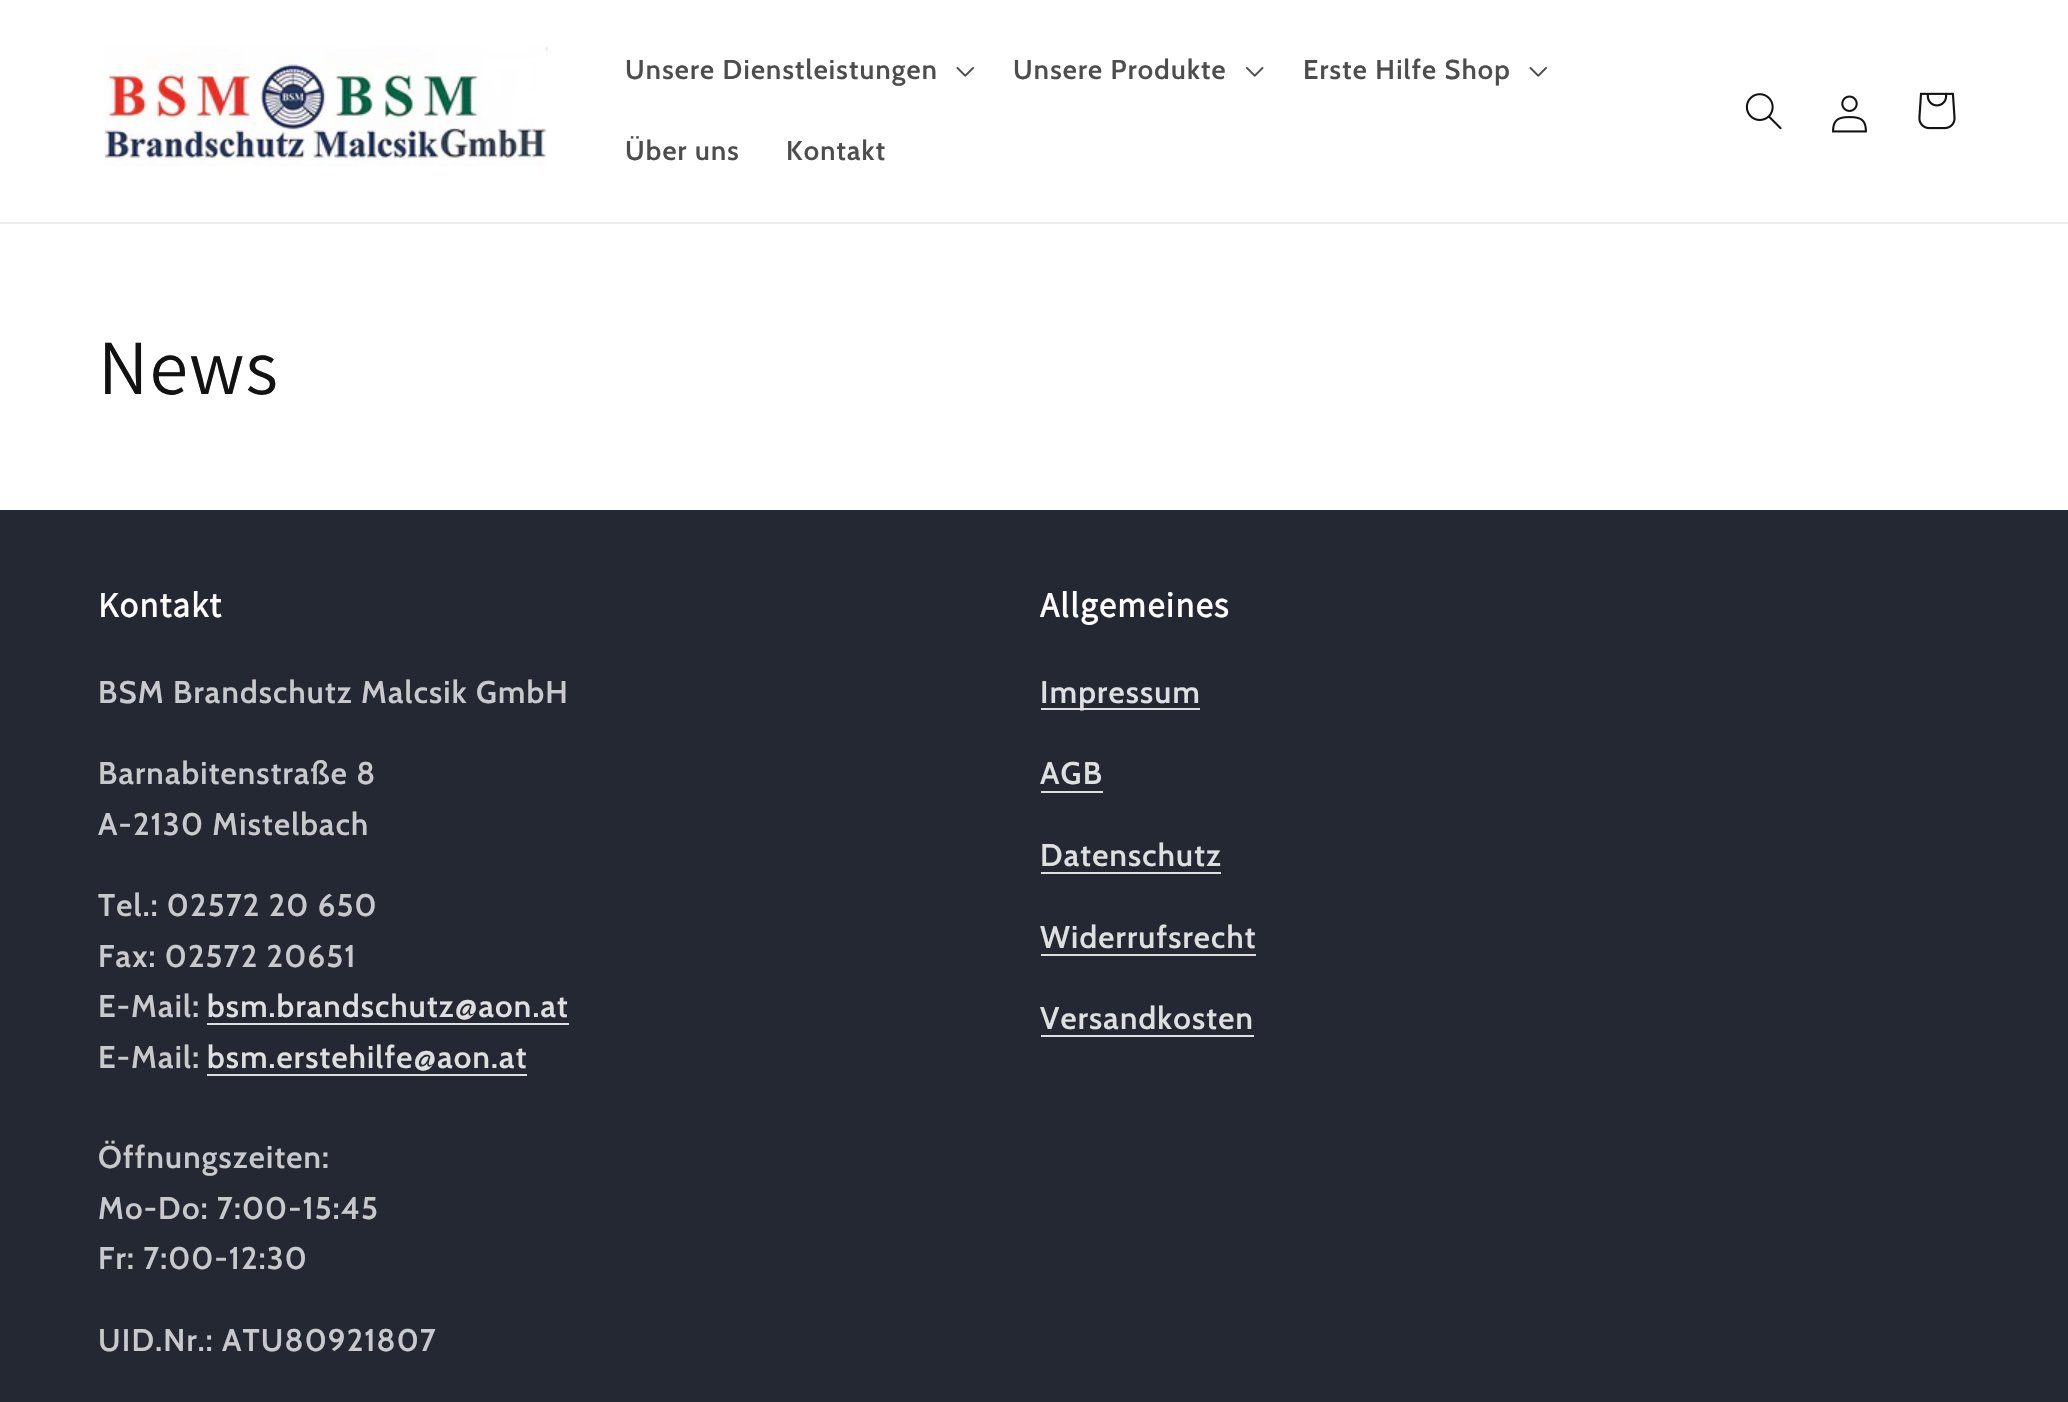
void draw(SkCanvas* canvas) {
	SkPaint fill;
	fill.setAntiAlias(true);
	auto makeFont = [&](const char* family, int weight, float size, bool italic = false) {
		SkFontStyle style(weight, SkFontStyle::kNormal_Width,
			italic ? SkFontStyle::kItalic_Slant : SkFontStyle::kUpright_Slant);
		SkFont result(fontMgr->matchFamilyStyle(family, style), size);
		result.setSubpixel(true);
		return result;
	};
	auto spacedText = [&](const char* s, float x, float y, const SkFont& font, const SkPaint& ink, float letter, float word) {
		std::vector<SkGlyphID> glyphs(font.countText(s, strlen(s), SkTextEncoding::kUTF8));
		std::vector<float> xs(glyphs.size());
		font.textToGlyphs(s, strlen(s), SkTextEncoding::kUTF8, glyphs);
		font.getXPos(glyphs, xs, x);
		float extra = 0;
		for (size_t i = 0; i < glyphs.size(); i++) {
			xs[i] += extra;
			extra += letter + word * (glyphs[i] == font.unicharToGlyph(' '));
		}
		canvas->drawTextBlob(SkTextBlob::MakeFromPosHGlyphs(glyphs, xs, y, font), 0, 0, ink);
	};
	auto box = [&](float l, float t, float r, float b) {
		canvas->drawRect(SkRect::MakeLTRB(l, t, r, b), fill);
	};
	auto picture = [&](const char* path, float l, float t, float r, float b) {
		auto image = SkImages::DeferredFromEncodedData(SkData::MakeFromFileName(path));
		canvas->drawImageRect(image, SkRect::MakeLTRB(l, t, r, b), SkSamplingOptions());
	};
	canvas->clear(0xFFFFFFFF);
	fill.setColor(0xFFECECEC);
	box(0, 222, 2068, 224);
	picture("image0.png", 104, 46, 548, 166);
	picture("image1.png", 956, 67, 974, 77);
	picture("image2.png", 1246, 67, 1264, 77);
	picture("image1.png", 1529, 67, 1547, 77);
	picture("image3.png", 1745, 93, 1782, 130);
	picture("image4.png", 1832, 95, 1867, 133);
	picture("image5.png", 1918, 92, 1956, 130);
	fill.setColor(0xFF242833);
	box(0, 510, 2068, 1402);
	fill.setColor(0xFFDEDFE0);
	box(207, 1023, 569, 1025);
	box(207, 1074, 527, 1076);
	box(1041, 708, 1200, 710);
	box(1041, 791, 1103, 793);
	box(1041, 872, 1221, 874);
	box(1041, 954, 1256, 956);
	box(1041, 1035, 1254, 1037);
	auto font1 = makeFont("Cabin", 600, 27.25f);
	fill.setColor(0xFF4D4D4D);
	spacedText("Unsere Dienstleistungen", 625, 79, font1, fill, 1.2f, 0);
	spacedText("Unsere Produkte", 1013, 79, font1, fill, 1.2f, 0);
	spacedText("Erste Hilfe Shop", 1303, 79, font1, fill, 1.2f, 0);
	spacedText("Über uns", 625, 160, font1, fill, 1.2f, 0);
	spacedText("Kontakt", 786, 160, font1, fill, 1.2f, 0);
	auto font2 = makeFont("Assistant", 400, 78);
	fill.setColor(0xFF121212);
	spacedText("News", 98, 394, font2, fill, 1.2f, 0);
	auto font3 = makeFont("Assistant", 700, 35);
	fill.setColor(0xFFFFFFFF);
	spacedText("Kontakt", 98, 617, font3, fill, 1.2f, 0);
	auto font4 = makeFont("Cabin", 600, 31.25f);
	fill.setColor(0xFFC8C9CC);
	spacedText("BSM Brandschutz Malcsik GmbH", 98, 703, font4, fill, 1.2f, 0);
	spacedText("Barnabitenstraße 8", 98, 784, font4, fill, 1.2f, 0);
	spacedText("A-2130 Mistelbach", 98, 835, font4, fill, 1.2f, 0);
	spacedText("Tel.: 02572 20 650", 98, 916, font4, fill, 1.2f, 0);
	spacedText("Fax: 02572 20651", 98, 967, font4, fill, 1.2f, 0);
	spacedText("E-Mail:", 98, 1017, font4, fill, 1.2f, 0);
	fill.setColor(0xFFDEDFE0);
	spacedText("bsm.brandschutz@aon.at", 207, 1017, font4, fill, 1.2f, 0);
	fill.setColor(0xFFC8C9CC);
	spacedText("E-Mail:", 98, 1068, font4, fill, 1.2f, 0);
	fill.setColor(0xFFDEDFE0);
	spacedText("bsm.erstehilfe@aon.at", 207, 1068, font4, fill, 1.2f, 0);
	fill.setColor(0xFFC8C9CC);
	spacedText("Öffnungszeiten:", 98, 1168, font4, fill, 1.2f, 0);
	spacedText("Mo-Do: 7:00-15:45", 98, 1219, font4, fill, 1.2f, 0);
	spacedText("Fr: 7:00-12:30", 98, 1269, font4, fill, 1.2f, 0);
	spacedText("UID.Nr.: ATU80921807", 98, 1351, font4, fill, 1.2f, 0);
	fill.setColor(0xFFFFFFFF);
	spacedText("Allgemeines", 1040, 617, font3, fill, 1.2f, 0);
	fill.setColor(0xFFDEDFE0);
	spacedText("Impressum", 1040, 703, font4, fill, 1.2f, 0);
	spacedText("AGB", 1040, 784, font4, fill, 1.2f, 0);
	spacedText("Datenschutz", 1040, 866, font4, fill, 1.2f, 0);
	spacedText("Widerrufsrecht", 1040, 948, font4, fill, 1.2f, 0);
	spacedText("Versandkosten", 1040, 1029, font4, fill, 1.2f, 0);
}
